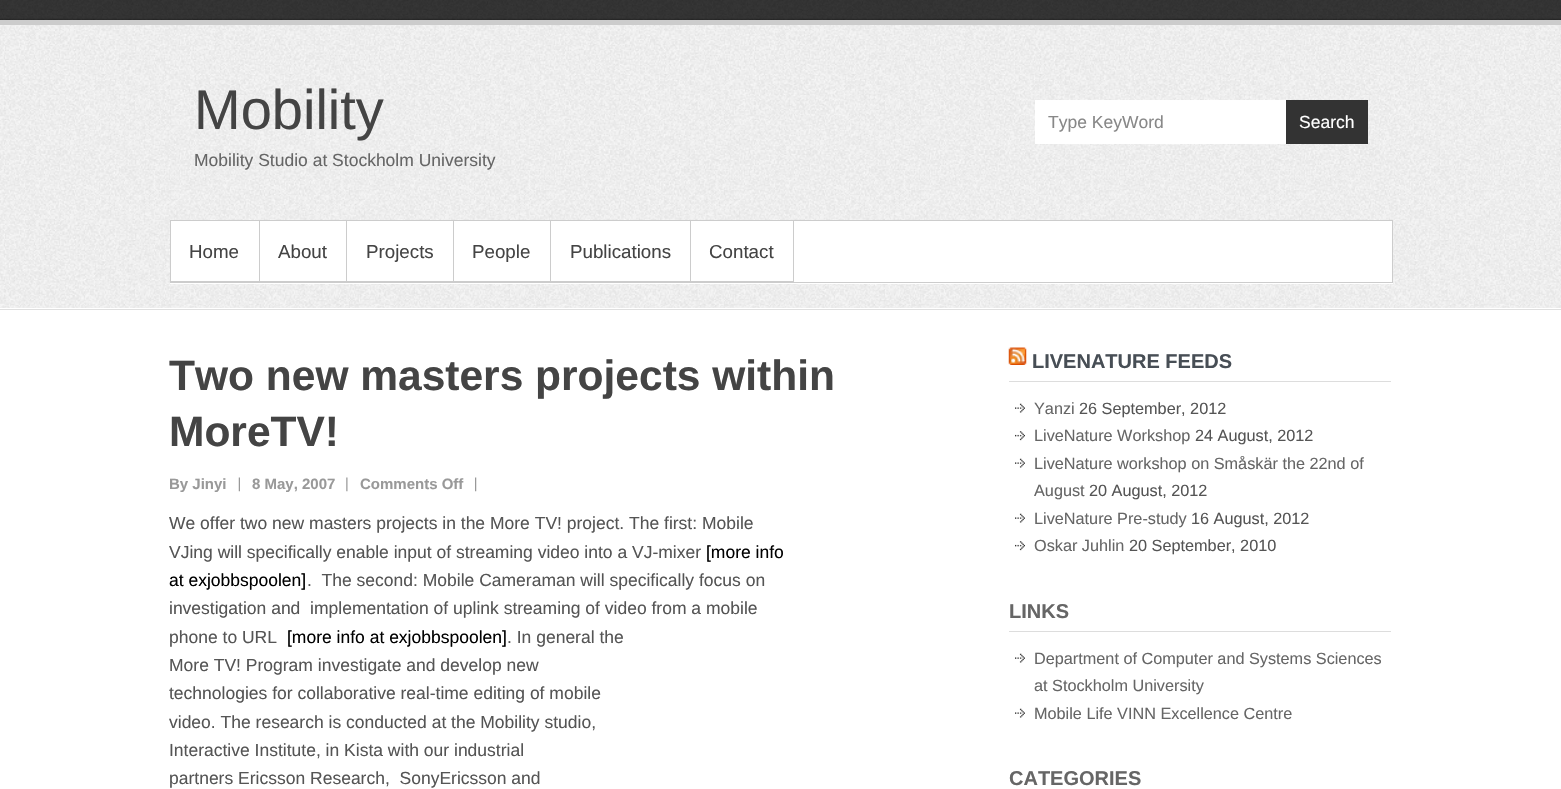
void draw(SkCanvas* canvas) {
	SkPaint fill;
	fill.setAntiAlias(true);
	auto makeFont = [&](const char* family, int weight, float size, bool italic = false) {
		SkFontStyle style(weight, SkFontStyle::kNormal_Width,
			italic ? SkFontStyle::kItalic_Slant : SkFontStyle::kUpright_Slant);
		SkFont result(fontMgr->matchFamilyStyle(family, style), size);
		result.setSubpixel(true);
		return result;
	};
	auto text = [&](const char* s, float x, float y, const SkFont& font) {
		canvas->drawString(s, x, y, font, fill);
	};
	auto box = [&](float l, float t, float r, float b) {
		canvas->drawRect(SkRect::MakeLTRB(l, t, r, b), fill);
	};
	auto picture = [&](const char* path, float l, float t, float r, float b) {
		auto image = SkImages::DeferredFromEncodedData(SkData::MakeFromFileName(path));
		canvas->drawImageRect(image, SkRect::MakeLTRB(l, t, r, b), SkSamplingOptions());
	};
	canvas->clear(0xFFFFFFFF);
	picture("image0.png", 0, 25, 1561, 308);
	fill.setColor(0xFFDFDFDF);
	box(0, 309, 1561, 310);
	picture("image1.png", 0, 0, 1561, 20);
	fill.setColor(0xFFCCCCCC);
	box(0, 20, 1561, 25);
	fill.setColor(0xFFFFFFFF);
	box(1035, 100, 1286, 144);
	fill.setColor(0xFF333333);
	box(1286, 100, 1368, 144);
	fill.setColor(0xFFFFFFFF);
	canvas->drawPath(SkPathBuilder().moveTo(170, 282).lineTo(170, 284).lineTo(1393, 284).lineTo(1393, 221).lineTo(1392, 221).lineTo(1392, 282).close().detach(), fill);
	canvas->drawRect(SkRect::MakeLTRB(170.5f, 220.5f, 1392.5f, 282.5f), fill);
	fill.setStyle(SkPaint::kStroke_Style);
	fill.setStrokeWidth(1);
	fill.setColor(0xFFCCCCCC);
	canvas->drawRect(SkRect::MakeLTRB(170.5f, 220.5f, 1392.5f, 282.5f), fill);
	fill.setStyle(SkPaint::kFill_Style);
	box(259, 221, 260, 283);
	box(171, 281, 260, 282);
	box(346, 221, 347, 283);
	box(260, 281, 348, 282);
	box(453, 221, 454, 283);
	box(348, 281, 454, 282);
	box(550, 221, 551, 283);
	box(454, 281, 551, 282);
	box(690, 221, 691, 283);
	box(551, 281, 691, 282);
	box(793, 221, 794, 283);
	box(691, 281, 794, 282);
	picture("image2.png", 238, 477, 240, 492);
	picture("image3.png", 346, 477, 348, 492);
	picture("image4.png", 475, 477, 477, 492);
	fill.setColor(0xFFDDDDDD);
	box(1009, 381, 1391, 382);
	picture("image5.png", 1008, 347, 1027, 365);
	picture("image6.png", 1015, 403, 1025, 413);
	picture("image7.png", 1015, 431, 1025, 441);
	picture("image6.png", 1015, 458, 1025, 468);
	picture("image6.png", 1015, 513, 1025, 523);
	picture("image7.png", 1015, 541, 1025, 551);
	box(1009, 631, 1391, 632);
	picture("image6.png", 1015, 653, 1025, 663);
	picture("image6.png", 1015, 708, 1025, 718);
	auto font1 = makeFont("Liberation Sans", 400, 56);
	fill.setColor(0xFF444444);
	text("Mobility", 194, 129, font1);
	auto font2 = makeFont("Liberation Sans", 400, 17.5f);
	fill.setColor(0xFF666666);
	text("Mobility Studio at Stockholm University", 194, 166, font2);
	fill.setColor(0xFF888888);
	text("Type KeyWord", 1048, 128, font2);
	fill.setColor(0xFFFFFFFF);
	text("Search", 1299, 128, font2);
	auto font3 = makeFont("Liberation Sans", 400, 18.75f);
	fill.setColor(0xFF444444);
	text("Home", 189, 258, font3);
	text("About", 278, 258, font3);
	text("Projects", 366, 258, font3);
	text("People", 472, 258, font3);
	text("Publications", 570, 258, font3);
	text("Contact", 709, 258, font3);
	auto font4 = makeFont("Liberation Sans", 700, 42.5f);
	text("Two new masters projects within", 169, 390, font4);
	text("MoreTV!", 169, 446, font4);
	auto font5 = makeFont("Liberation Sans", 700, 15);
	fill.setColor(0xFF999999);
	text("By Jinyi", 169, 489, font5);
	text("8 May, 2007", 252, 489, font5);
	text("Comments Off", 360, 489, font5);
	fill.setColor(0xFF555555);
	text("We offer two new masters projects in the More TV! project. The first: Mobile", 169, 529, font2);
	text("VJing will specifically enable input of streaming video into a VJ-mixer", 169, 558, font2);
	fill.setColor(0xFF000000);
	text("[more info", 706, 558, font2);
	text("at exjobbspoolen]", 169, 586, font2);
	fill.setColor(0xFF555555);
	text(".  The second: Mobile Cameraman will specifically focus on", 307, 586, font2);
	text("investigation and  implementation of uplink streaming of video from a mobile", 169, 614, font2);
	text("phone to URL", 169, 643, font2);
	fill.setColor(0xFF000000);
	text("[more info at exjobbspoolen]", 287, 643, font2);
	fill.setColor(0xFF555555);
	text(". In general the", 507, 643, font2);
	text("More TV! Program investigate and develop new", 169, 671, font2);
	text("technologies for collaborative real-time editing of mobile", 169, 699, font2);
	text("video. The research is conducted at the Mobility studio,", 169, 728, font2);
	text("Interactive Institute, in Kista with our industrial", 169, 756, font2);
	text("partners Ericsson Research,  SonyEricsson and", 169, 784, font2);
	auto font6 = makeFont("Liberation Sans", 700, 20);
	fill.setColor(0xFF474E55);
	text("LIVENATURE FEEDS", 1032, 368, font6);
	auto font7 = makeFont("Liberation Sans", 400, 16.25f);
	fill.setColor(0xFF666666);
	text("Yanzi", 1034, 414, font7);
	fill.setColor(0xFF555555);
	text("26 September, 2012", 1079, 414, font7);
	fill.setColor(0xFF666666);
	text("LiveNature Workshop", 1034, 441, font7);
	fill.setColor(0xFF555555);
	text("24 August, 2012", 1195, 441, font7);
	fill.setColor(0xFF666666);
	text("LiveNature workshop on Småskär the 22nd of", 1034, 469, font7);
	text("August", 1034, 496, font7);
	fill.setColor(0xFF555555);
	text("20 August, 2012", 1089, 496, font7);
	fill.setColor(0xFF666666);
	text("LiveNature Pre-study", 1034, 524, font7);
	fill.setColor(0xFF555555);
	text("16 August, 2012", 1191, 524, font7);
	fill.setColor(0xFF666666);
	text("Oskar Juhlin", 1034, 551, font7);
	fill.setColor(0xFF555555);
	text("20 September, 2010", 1129, 551, font7);
	fill.setColor(0xFF666666);
	text("LINKS", 1009, 618, font6);
	text("Department of Computer and Systems Sciences", 1034, 664, font7);
	text("at Stockholm University", 1034, 691, font7);
	text("Mobile Life VINN Excellence Centre", 1034, 719, font7);
	text("CATEGORIES", 1009, 785, font6);
}
